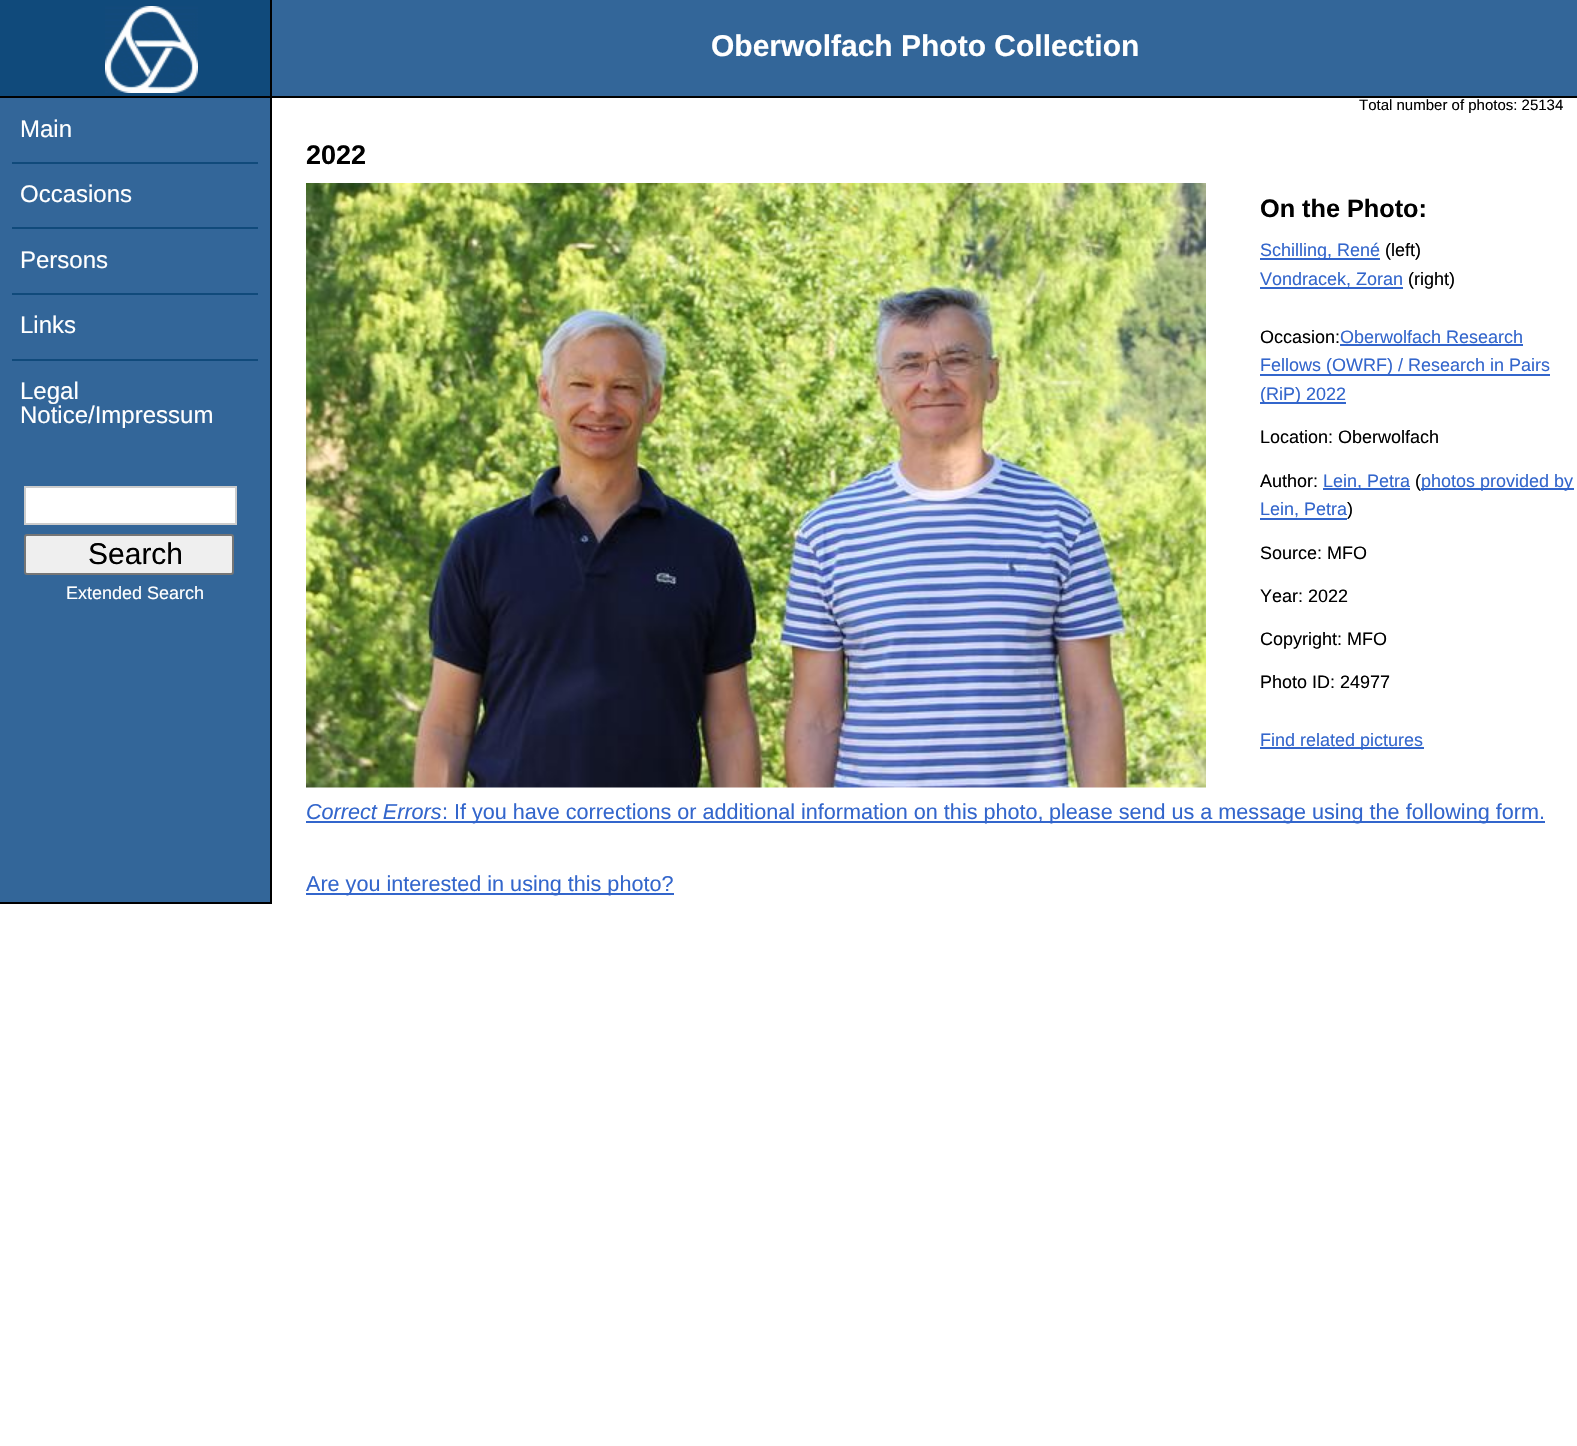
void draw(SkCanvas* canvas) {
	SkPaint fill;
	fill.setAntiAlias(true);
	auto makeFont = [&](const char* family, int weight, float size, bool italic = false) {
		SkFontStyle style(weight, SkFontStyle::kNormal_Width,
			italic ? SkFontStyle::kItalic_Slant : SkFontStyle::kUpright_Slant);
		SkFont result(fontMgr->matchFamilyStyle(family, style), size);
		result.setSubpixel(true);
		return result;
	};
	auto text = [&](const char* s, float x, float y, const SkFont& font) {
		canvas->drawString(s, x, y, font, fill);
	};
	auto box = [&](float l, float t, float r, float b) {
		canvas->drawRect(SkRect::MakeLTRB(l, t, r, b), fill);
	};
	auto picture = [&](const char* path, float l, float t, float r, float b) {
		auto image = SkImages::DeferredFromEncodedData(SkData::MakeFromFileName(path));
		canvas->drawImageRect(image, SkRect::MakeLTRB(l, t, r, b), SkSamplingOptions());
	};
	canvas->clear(0xFFFFFFFF);
	fill.setColor(0xFF336699);
	box(272, 0, 1577, 96);
	fill.setColor(0xFF000000);
	box(0, 96, 1577, 98);
	fill.setColor(0xFF104A7B);
	box(0, 0, 270, 96);
	fill.setColor(0xFF000000);
	box(270, 0, 272, 96);
	picture("image0.png", 105, 6, 198, 93);
	fill.setColor(0xFF336699);
	box(0, 98, 270, 902);
	fill.setColor(0xFF000000);
	box(270, 98, 272, 903);
	box(0, 902, 272, 904);
	fill.setColor(0xFF104A7B);
	box(12, 162, 258, 164);
	box(12, 227, 258, 229);
	box(12, 293, 258, 295);
	box(12, 359, 258, 361);
	fill.setColor(0xFFFFFFFF);
	canvas->drawRect(SkRect::MakeLTRB(25, 487, 236, 524), fill);
	fill.setStyle(SkPaint::kStroke_Style);
	fill.setStrokeWidth(2);
	fill.setColor(0xFFCCCCCC);
	canvas->drawRect(SkRect::MakeLTRB(25, 487, 236, 524), fill);
	fill.setStyle(SkPaint::kFill_Style);
	fill.setColor(0xFFEFEFEF);
	canvas->drawRoundRect(SkRect::MakeLTRB(25, 535, 233, 574), 2, 2, fill);
	fill.setStyle(SkPaint::kStroke_Style);
	fill.setColor(0xFF767676);
	canvas->drawRoundRect(SkRect::MakeLTRB(25, 535, 233, 574), 2, 2, fill);
	picture("image1.png", 306, 183, 1206, 788);
	fill.setStyle(SkPaint::kFill_Style);
	fill.setColor(0xFF3366CC);
	box(1260, 258, 1380, 260);
	box(1260, 287, 1403, 289);
	box(1340, 344, 1523, 346);
	box(1260, 374, 1550, 376);
	box(1260, 402, 1346, 404);
	box(1323, 488, 1410, 490);
	box(1421, 488, 1574, 490);
	box(1260, 518, 1347, 520);
	box(1260, 747, 1424, 749);
	box(306, 821, 1545, 823);
	box(306, 893, 674, 895);
	auto font1 = makeFont("Liberation Sans", 700, 30);
	fill.setColor(0xFFFFFFFF);
	text("Oberwolfach Photo Collection", 711, 56, font1);
	auto font2 = makeFont("Liberation Sans", 400, 15);
	fill.setColor(0xFF000000);
	text("Total number of photos: 25134", 1359, 110, font2);
	auto font3 = makeFont("Liberation Sans", 400, 24);
	fill.setColor(0xFFFFFFFF);
	text("Main", 20, 137, font3);
	text("Occasions", 20, 202, font3);
	text("Persons", 20, 268, font3);
	text("Links", 20, 333, font3);
	text("Legal", 20, 399, font3);
	text("Notice/Impressum", 20, 423, font3);
	auto font4 = makeFont("Liberation Sans", 400, 30);
	fill.setColor(0xFF000000);
	text("Search", 88, 564, font4);
	auto font5 = makeFont("Liberation Sans", 400, 18);
	fill.setColor(0xFFFFFFFF);
	text("Extended Search", 66, 599, font5);
	auto font6 = makeFont("Liberation Sans", 700, 27);
	fill.setColor(0xFF000000);
	text("2022", 306, 164, font6);
	auto font7 = makeFont("Liberation Sans", 700, 25.25f);
	text("On the Photo:", 1260, 217, font7);
	fill.setColor(0xFF3366CC);
	text("Schilling, René", 1260, 256, font5);
	fill.setColor(0xFF000000);
	text("(left)", 1385, 256, font5);
	fill.setColor(0xFF3366CC);
	text("Vondracek, Zoran", 1260, 285, font5);
	fill.setColor(0xFF000000);
	text("(right)", 1408, 285, font5);
	text("Occasion:", 1260, 343, font5);
	fill.setColor(0xFF3366CC);
	text("Oberwolfach Research", 1340, 343, font5);
	text("Fellows (OWRF) / Research in Pairs", 1260, 371, font5);
	text("(RiP) 2022", 1260, 400, font5);
	fill.setColor(0xFF000000);
	text("Location: Oberwolfach", 1260, 443, font5);
	text("Author:", 1260, 487, font5);
	fill.setColor(0xFF3366CC);
	text("Lein, Petra", 1323, 487, font5);
	fill.setColor(0xFF000000);
	text("(", 1415, 487, font5);
	fill.setColor(0xFF3366CC);
	text("photos provided by", 1421, 487, font5);
	text("Lein, Petra", 1260, 515, font5);
	fill.setColor(0xFF000000);
	text(")", 1347, 515, font5);
	text("Source: MFO", 1260, 559, font5);
	text("Year: 2022", 1260, 602, font5);
	text("Copyright: MFO", 1260, 645, font5);
	text("Photo ID: 24977", 1260, 688, font5);
	fill.setColor(0xFF3366CC);
	text("Find related pictures", 1260, 746, font5);
	auto font8 = makeFont("Liberation Sans", 400, 21.6f, true);
	text("Correct Errors", 306, 819, font8);
	auto font9 = makeFont("Liberation Sans", 400, 21.6f);
	text(": If you have corrections or additional information on this photo,", 442, 819, font9);
	text("please send us a message using the following form.", 1049, 819, font9);
	text("Are you interested in using this photo?", 306, 891, font9);
}
